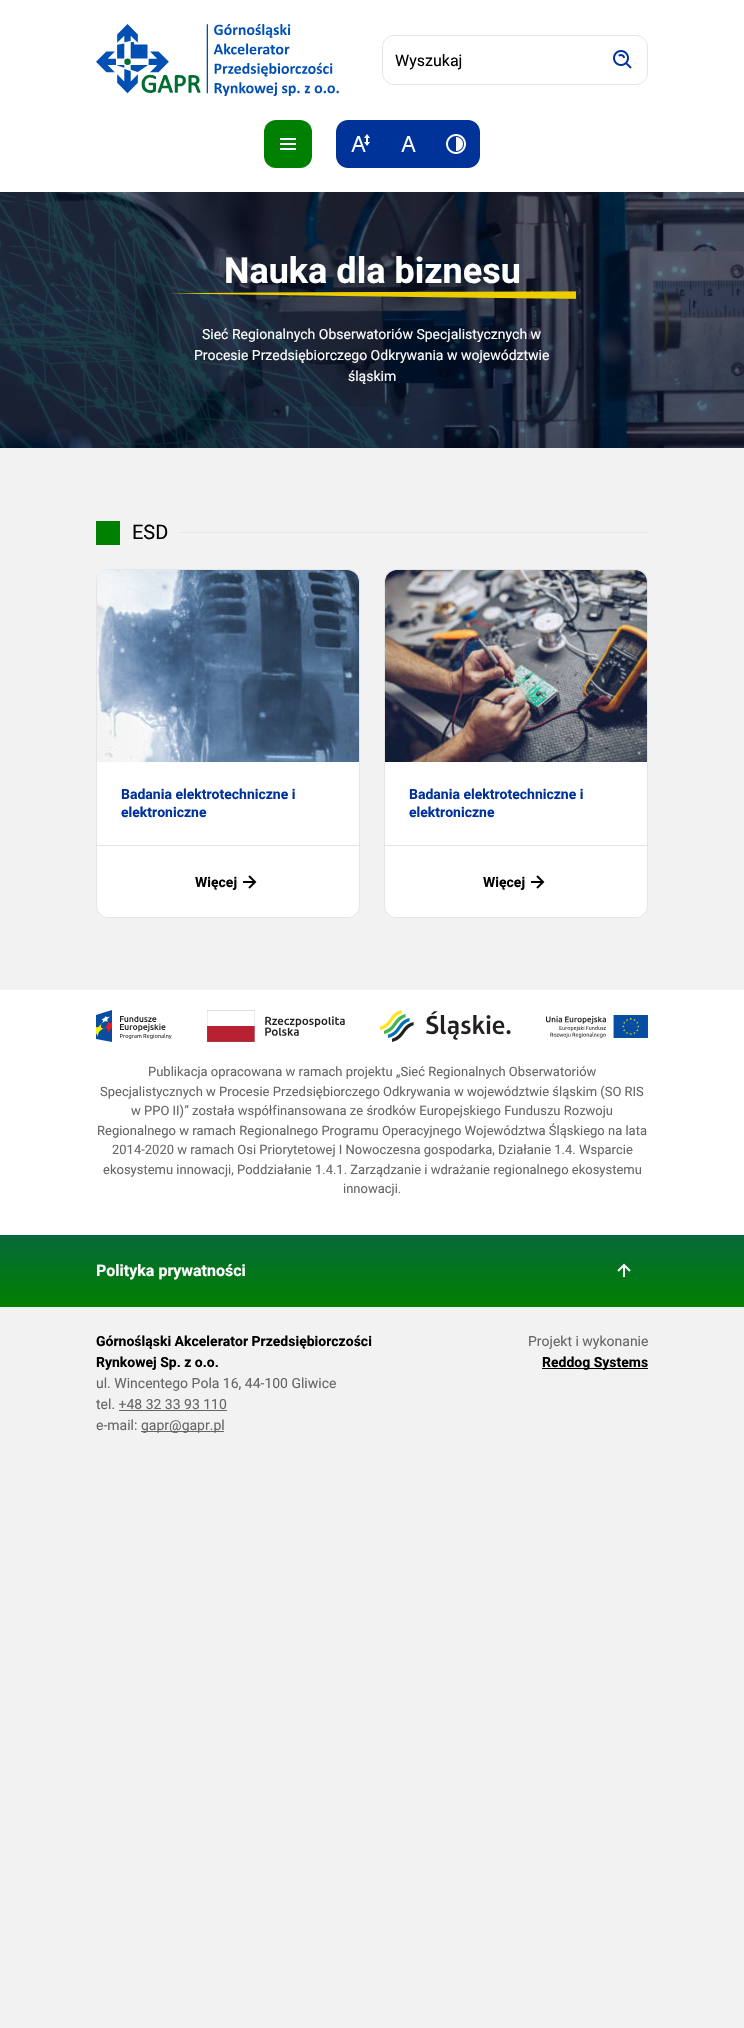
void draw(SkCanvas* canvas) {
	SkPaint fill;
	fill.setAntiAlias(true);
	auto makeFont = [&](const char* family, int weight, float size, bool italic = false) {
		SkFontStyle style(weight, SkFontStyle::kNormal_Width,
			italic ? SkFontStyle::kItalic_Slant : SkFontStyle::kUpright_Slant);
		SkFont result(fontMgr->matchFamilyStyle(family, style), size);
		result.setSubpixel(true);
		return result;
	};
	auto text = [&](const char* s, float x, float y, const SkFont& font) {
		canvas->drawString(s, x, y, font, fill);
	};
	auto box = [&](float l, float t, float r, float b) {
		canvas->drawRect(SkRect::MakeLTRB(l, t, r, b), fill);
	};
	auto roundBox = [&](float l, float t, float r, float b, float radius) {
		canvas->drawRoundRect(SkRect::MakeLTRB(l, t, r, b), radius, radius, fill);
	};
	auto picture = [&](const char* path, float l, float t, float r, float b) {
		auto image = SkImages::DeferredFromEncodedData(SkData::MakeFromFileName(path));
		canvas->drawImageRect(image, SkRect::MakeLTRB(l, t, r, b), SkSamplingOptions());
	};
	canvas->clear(0xFFF2F2F2);
	fill.setColor(0xFFFFFFFF);
	box(0, 0, 744, 192);
	picture("image0.png", 96, 24, 339, 96);
	fill.setStyle(SkPaint::kStroke_Style);
	fill.setStrokeWidth(1);
	fill.setColor(0xFFE5E5E5);
	canvas->drawRoundRect(SkRect::MakeLTRB(382.5f, 35.5f, 647.5f, 84.5f), 11.5f, 11.5f, fill);
	fill.setStyle(SkPaint::kFill_Style);
	fill.setColor(0xFFFFFFFF);
	roundBox(383, 36, 599, 84, 12);
	picture("image1.png", 613, 50, 632, 69);
	fill.setColor(0xFF008000);
	roundBox(264, 120, 312, 168, 12);
	picture("image2.png", 280, 138, 296, 150);
	fill.setColor(0xFF003399);
	canvas->drawPath(SkPathBuilder().moveTo(348, 120).lineTo(384, 120).lineTo(384, 168).lineTo(348, 168).cubicTo(341.5f, 168, 336, 162.5f, 336, 156).lineTo(336, 132).cubicTo(336, 125.5f, 341.5f, 120, 348, 120).close().detach(), fill);
	picture("image3.png", 351, 134, 370, 152);
	box(384, 120, 432, 168);
	picture("image4.png", 401, 136, 416, 152);
	canvas->drawPath(SkPathBuilder().moveTo(432, 120).lineTo(468, 120).cubicTo(474.5f, 120, 480, 125.5f, 480, 132).lineTo(480, 156).cubicTo(480, 162.5f, 474.5f, 168, 468, 168).lineTo(432, 168).close().detach(), fill);
	picture("image5.png", 446, 134, 466, 154);
	picture("image6.png", 0, 192, 744, 448);
	picture("image7.png", 168, 291, 576, 299);
	fill.setColor(0xFFE6E6E6);
	box(180, 532, 648, 533);
	fill.setColor(0xFF008000);
	box(96, 521, 120, 545);
	fill.setColor(0xFFFFFFFF);
	canvas->drawRoundRect(SkRect::MakeLTRB(96.5f, 569.5f, 359.5f, 917.5f), 11.5f, 11.5f, fill);
	fill.setStyle(SkPaint::kStroke_Style);
	fill.setColor(0xFFE5E5E5);
	canvas->drawRoundRect(SkRect::MakeLTRB(96.5f, 569.5f, 359.5f, 917.5f), 11.5f, 11.5f, fill);
	picture("image8.png", 97, 570, 359, 762);
	fill.setStyle(SkPaint::kFill_Style);
	box(97, 845, 359, 846);
	picture("image9.png", 243, 875, 257, 889);
	fill.setColor(0xFFFFFFFF);
	canvas->drawRoundRect(SkRect::MakeLTRB(384.5f, 569.5f, 647.5f, 917.5f), 11.5f, 11.5f, fill);
	fill.setStyle(SkPaint::kStroke_Style);
	fill.setColor(0xFFE5E5E5);
	canvas->drawRoundRect(SkRect::MakeLTRB(384.5f, 569.5f, 647.5f, 917.5f), 11.5f, 11.5f, fill);
	picture("image10.png", 385, 570, 647, 762);
	fill.setStyle(SkPaint::kFill_Style);
	box(385, 845, 647, 846);
	picture("image9.png", 531, 875, 545, 889);
	fill.setColor(0xFFFFFFFF);
	box(0, 990, 744, 1235);
	picture("image11.png", 96, 1010, 172, 1042);
	picture("image12.png", 207, 1010, 345, 1042);
	picture("image13.png", 380, 1010, 511, 1042);
	picture("image14.png", 546, 1015, 648, 1038);
	{
		const SkColor colors[] = {0xFF07693A, 0xFF008000};
		const float stops[] = {0, 1};
		const SkPoint ends[] = {{372, 1235}, {372, 1307}};
		fill.setShader(SkGradientShader::MakeLinear(ends, colors, stops, 2, SkTileMode::kClamp));
		fill.setAlpha(255);
	}
	box(0, 1235, 744, 1307);
	picture("image15.png", 617, 1263, 631, 1277);
	fill.setShader(nullptr);
	fill.setColor(0xFF666666);
	box(119, 1410, 227, 1411);
	box(141, 1431, 224, 1432);
	fill.setColor(0xFF000000);
	box(542, 1368, 648, 1369);
	auto font1 = makeFont("Roboto", 400, 16);
	text("Wyszukaj", 395, 66, font1);
	auto font2 = makeFont("Roboto", 700, 36);
	fill.setColor(0xFFFFFFFF);
	text("Nauka dla biznesu", 224, 283, font2);
	auto font3 = makeFont("Roboto", 400, 14);
	text("Sieć Regionalnych Obserwatoriów Specjalistycznych w", 202, 339, font3);
	text("Procesie Przedsiębiorczego Odkrywania w województwie", 194, 360, font3);
	text("śląskim", 348, 381, font3);
	auto font4 = makeFont("Roboto", 400, 20);
	fill.setColor(0xFF000000);
	text("ESD", 132, 539, font4);
	auto font5 = makeFont("Roboto", 700, 14);
	fill.setColor(0xFF003399);
	text("Badania elektrotechniczne i", 121, 799, font5);
	text("elektroniczne", 121, 817, font5);
	fill.setColor(0xFF000000);
	text("Więcej", 195, 887, font5);
	fill.setColor(0xFF003399);
	text("Badania elektrotechniczne i", 409, 799, font5);
	text("elektroniczne", 409, 817, font5);
	fill.setColor(0xFF000000);
	text("Więcej", 483, 887, font5);
	auto font6 = makeFont("Roboto", 400, 13);
	fill.setColor(0xFF666666);
	text("Publikacja opracowana w ramach projektu „Sieć Regionalnych Obserwatoriów", 148, 1076, font6);
	text("Specjalistycznych w Procesie Przedsiębiorczego Odkrywania w województwie śląskim (SO RIS", 100, 1096, font6);
	text("w PPO II)” została współfinansowana ze środków Europejskiego Funduszu Rozwoju", 131, 1115, font6);
	text("Regionalnego w ramach Regionalnego Programu Operacyjnego Województwa Śląskiego na lata", 97, 1135, font6);
	text("2014-2020 w ramach Osi Priorytetowej I Nowoczesna gospodarka, Działanie 1.4. Wsparcie", 112, 1154, font6);
	text("ekosystemu innowacji, Poddziałanie 1.4.1. Zarządzanie i wdrażanie regionalnego ekosystemu", 103, 1174, font6);
	text("innowacji.", 343, 1193, font6);
	auto font7 = makeFont("Roboto", 700, 16);
	fill.setColor(0xFFFFFFFF);
	text("Polityka prywatności", 96, 1276, font7);
	fill.setColor(0xFF000000);
	text("Górnośląski Akcelerator Przedsiębiorczości", 96, 1346, font5);
	text("Rynkowej Sp. z o.o.", 96, 1367, font5);
	fill.setColor(0xFF666666);
	text("ul. Wincentego Pola 16, 44-100 Gliwice", 96, 1388, font3);
	text("tel. +48 32 33 93 110", 96, 1409, font3);
	text("e-mail:", 96, 1430, font3);
	text("gapr@gapr.pl", 141, 1430, font3);
	text("Projekt i wykonanie", 528, 1346, font3);
	fill.setColor(0xFF000000);
	text("Reddog Systems", 542, 1367, font5);
}
